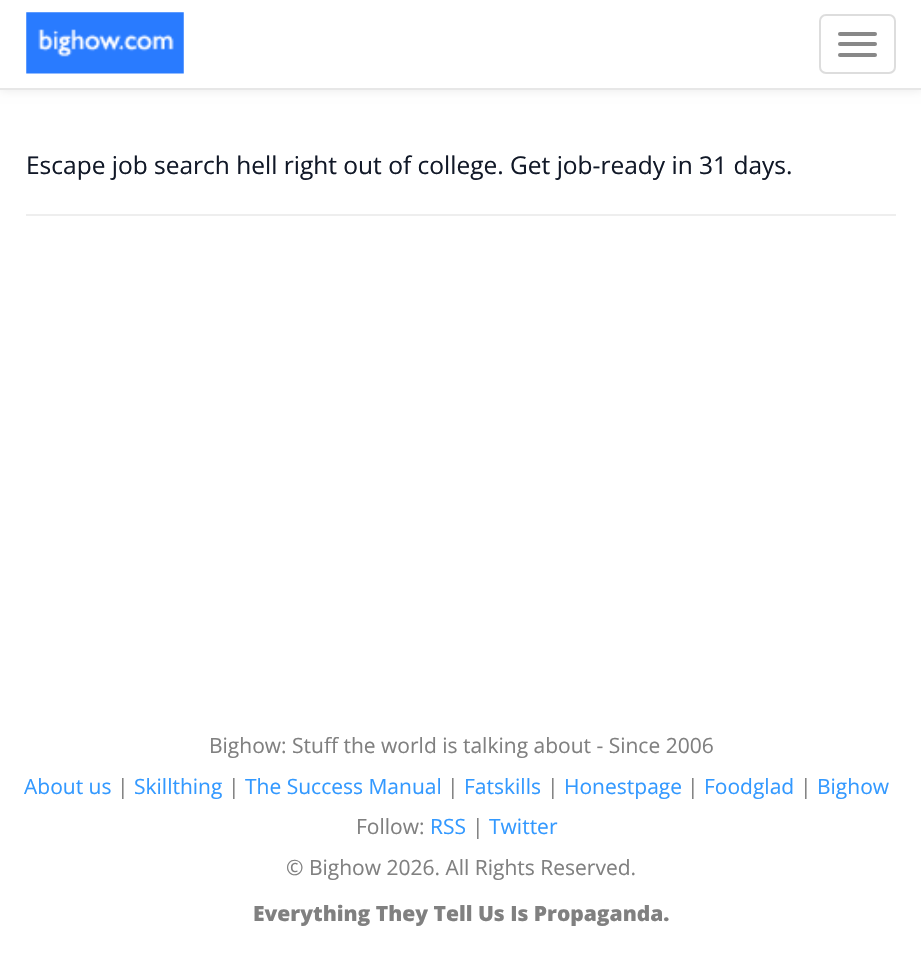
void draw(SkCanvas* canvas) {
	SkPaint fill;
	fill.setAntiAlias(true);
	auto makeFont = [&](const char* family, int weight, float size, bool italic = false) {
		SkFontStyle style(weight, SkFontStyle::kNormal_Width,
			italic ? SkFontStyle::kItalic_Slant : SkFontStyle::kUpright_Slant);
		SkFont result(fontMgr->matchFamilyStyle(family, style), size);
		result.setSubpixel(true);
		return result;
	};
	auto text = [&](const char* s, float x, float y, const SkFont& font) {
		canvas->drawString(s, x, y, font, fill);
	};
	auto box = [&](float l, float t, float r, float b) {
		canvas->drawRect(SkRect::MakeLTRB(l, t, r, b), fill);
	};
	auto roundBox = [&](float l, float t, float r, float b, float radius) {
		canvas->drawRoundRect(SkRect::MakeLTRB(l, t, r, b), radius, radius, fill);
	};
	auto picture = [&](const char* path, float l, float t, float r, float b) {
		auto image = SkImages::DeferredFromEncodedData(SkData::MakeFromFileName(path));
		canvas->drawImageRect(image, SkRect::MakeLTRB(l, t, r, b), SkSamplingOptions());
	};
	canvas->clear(0xFFFFFFFF);
	fill.setColor(0x12000000);
	fill.setMaskFilter(SkMaskFilter::MakeBlur(kNormal_SkBlurStyle, 4.5f));
	canvas->drawRect(SkRect::MakeLTRB(0, 2, 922, 91), fill);
	fill.setMaskFilter(nullptr);
	fill.setColor(0xFFFFFFFF);
	box(0, 0, 921, 88);
	fill.setColor(0xFFE7E7E7);
	box(0, 88, 921, 90);
	picture("image0.png", 26, 12, 184, 74);
	fill.setStyle(SkPaint::kStroke_Style);
	fill.setStrokeWidth(2);
	fill.setColor(0xFFDDDDDD);
	canvas->drawRoundRect(SkRect::MakeLTRB(820, 15, 895, 73), 6, 6, fill);
	fill.setStyle(SkPaint::kFill_Style);
	fill.setColor(0xFF888888);
	roundBox(838, 32, 877, 36, 2);
	roundBox(838, 42, 877, 46, 2);
	roundBox(838, 53, 877, 57, 2);
	fill.setColor(0xFFEEEEEE);
	box(26, 214, 896, 216);
	auto font1 = makeFont("Open Sans", 400, 24.5f);
	fill.setColor(0xFF111827);
	text("Escape job search hell right out of college. Get job-ready in 31 days.", 26, 174, font1);
	auto font2 = makeFont("Open Sans", 400, 21);
	fill.setColor(0xFF808080);
	text("Bighow: Stuff the world is talking about - Since 2006", 209, 753, font2);
	fill.setColor(0xFF3399FF);
	text("About us", 24, 794, font2);
	fill.setColor(0xFF808080);
	text("|", 117, 794, font2);
	fill.setColor(0xFF3399FF);
	text("Skillthing", 134, 794, font2);
	fill.setColor(0xFF808080);
	text("|", 228, 794, font2);
	fill.setColor(0xFF3399FF);
	text("The Success Manual", 245, 794, font2);
	fill.setColor(0xFF808080);
	text("|", 447, 794, font2);
	fill.setColor(0xFF3399FF);
	text("Fatskills", 464, 794, font2);
	fill.setColor(0xFF808080);
	text("|", 547, 794, font2);
	fill.setColor(0xFF3399FF);
	text("Honestpage", 564, 794, font2);
	fill.setColor(0xFF808080);
	text("|", 687, 794, font2);
	fill.setColor(0xFF3399FF);
	text("Foodglad", 704, 794, font2);
	fill.setColor(0xFF808080);
	text("|", 800, 794, font2);
	fill.setColor(0xFF3399FF);
	text("Bighow", 817, 794, font2);
	fill.setColor(0xFF808080);
	text("Follow:", 356, 834, font2);
	fill.setColor(0xFF3399FF);
	text("RSS", 430, 834, font2);
	fill.setColor(0xFF808080);
	text("|", 472, 834, font2);
	fill.setColor(0xFF3399FF);
	text("Twitter", 489, 834, font2);
	fill.setColor(0xFF808080);
	text("© Bighow 2026. All Rights Reserved.", 286, 875, font2);
	auto font3 = makeFont("Open Sans", 800, 21);
	text("Everything They Tell Us Is Propaganda.", 253, 921, font3);
}
